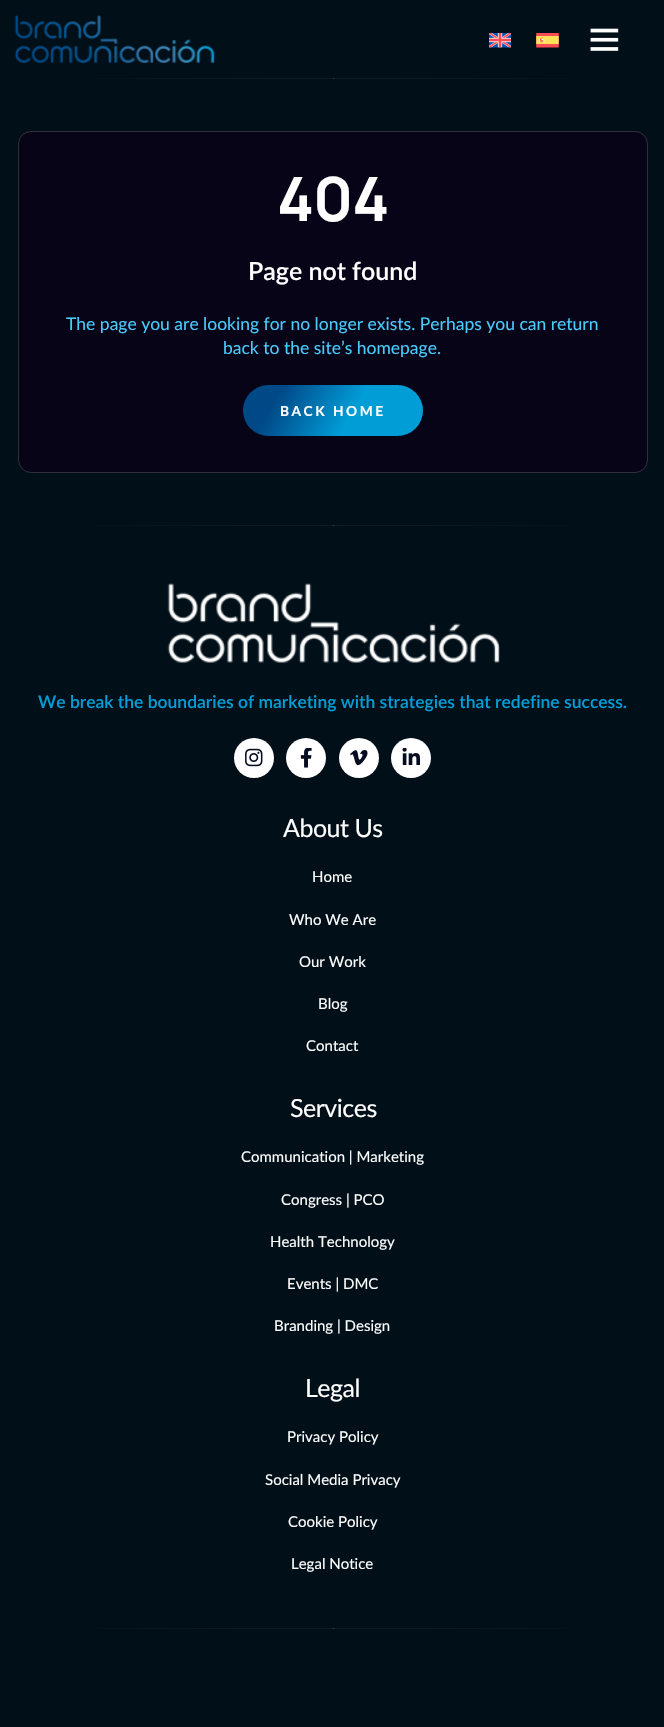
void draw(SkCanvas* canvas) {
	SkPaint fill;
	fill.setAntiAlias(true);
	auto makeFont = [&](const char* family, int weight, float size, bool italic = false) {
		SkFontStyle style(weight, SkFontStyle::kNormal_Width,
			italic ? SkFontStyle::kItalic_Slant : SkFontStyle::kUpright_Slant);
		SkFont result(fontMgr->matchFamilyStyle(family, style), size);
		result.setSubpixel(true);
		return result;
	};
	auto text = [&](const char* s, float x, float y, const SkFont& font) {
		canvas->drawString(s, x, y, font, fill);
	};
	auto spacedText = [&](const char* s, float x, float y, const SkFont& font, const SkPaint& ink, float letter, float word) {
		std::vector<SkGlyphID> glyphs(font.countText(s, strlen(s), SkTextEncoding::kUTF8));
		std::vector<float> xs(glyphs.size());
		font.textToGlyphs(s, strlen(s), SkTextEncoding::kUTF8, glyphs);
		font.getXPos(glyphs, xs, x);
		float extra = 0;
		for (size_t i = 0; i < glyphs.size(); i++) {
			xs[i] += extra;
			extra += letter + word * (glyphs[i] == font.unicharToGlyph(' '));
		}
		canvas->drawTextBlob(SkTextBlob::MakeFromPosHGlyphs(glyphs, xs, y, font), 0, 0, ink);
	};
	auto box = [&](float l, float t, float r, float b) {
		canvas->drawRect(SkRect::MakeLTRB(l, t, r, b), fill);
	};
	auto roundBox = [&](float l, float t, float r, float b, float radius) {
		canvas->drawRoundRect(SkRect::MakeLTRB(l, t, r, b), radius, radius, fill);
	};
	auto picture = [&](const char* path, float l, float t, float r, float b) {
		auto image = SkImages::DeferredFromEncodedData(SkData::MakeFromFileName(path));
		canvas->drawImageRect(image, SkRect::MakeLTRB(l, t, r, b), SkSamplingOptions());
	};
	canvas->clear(0xFF010F18);
	picture("image0.png", 14, 15, 215, 64);
	picture("image1.png", 489, 33, 511, 48);
	picture("image2.png", 536, 33, 559, 48);
	picture("image3.png", 590, 28, 619, 51);
	{
		const SkColor colors[] = {0xFF2C383F, 0xFF010F18};
		const float stops[] = {0, 0.8f};
		SkMatrix m = SkMatrix::Translate(333, 78).preScale(470, 0.9f);
		fill.setShader(SkGradientShader::MakeRadial({0, 0}, 1, colors, stops, 2, SkTileMode::kClamp, 0, &m));
		fill.setAlpha(255);
	}
	box(93, 78, 573, 79);
	fill.setShader(nullptr);
	fill.setColor(0xFF374349);
	box(333, 78, 334, 79);
	fill.setColor(0xFF080418);
	roundBox(18, 131, 648, 473, 13);
	fill.setStyle(SkPaint::kStroke_Style);
	fill.setStrokeWidth(1);
	fill.setColor(0x2BFFFFFF);
	canvas->drawRoundRect(SkRect::MakeLTRB(18.5f, 131.5f, 647.5f, 472.5f), 12.5f, 12.5f, fill);
	fill.setStyle(SkPaint::kFill_Style);
	{
		const SkColor colors[] = {0xFF004987, 0xFF009DD7};
		const float stops[] = {0.2f, 0.6f};
		const SkPoint ends[] = {{254, 365}, {411, 456}};
		fill.setShader(SkGradientShader::MakeLinear(ends, colors, stops, 2, SkTileMode::kClamp));
		fill.setAlpha(255);
	}
	roundBox(243, 385, 423, 436, 25.5f);
	{
		const SkColor colors[] = {0xFF2C383F, 0xFF010F18};
		const float stops[] = {0, 0.8f};
		SkMatrix m = SkMatrix::Translate(333, 526).preScale(470, 0.9f);
		fill.setShader(SkGradientShader::MakeRadial({0, 0}, 1, colors, stops, 2, SkTileMode::kClamp, 0, &m));
		fill.setAlpha(255);
	}
	box(93, 525, 573, 526);
	fill.setShader(nullptr);
	fill.setColor(0xFF374349);
	box(333, 525, 334, 526);
	picture("image4.png", 167, 583, 500, 663);
	fill.setColor(0xFFFFFFFF);
	canvas->drawCircle(254, 758, 20, fill);
	picture("image5.png", 245, 748, 263, 767);
	canvas->drawCircle(306, 758, 20, fill);
	picture("image6.png", 300, 748, 312, 768);
	canvas->drawCircle(359, 758, 20, fill);
	picture("image7.png", 350, 750, 368, 766);
	canvas->drawCircle(411, 758, 20, fill);
	picture("image8.png", 402, 748, 420, 765);
	{
		const SkColor colors[] = {0xFF2C383F, 0xFF010F18};
		const float stops[] = {0, 0.8f};
		SkMatrix m = SkMatrix::Translate(333, 1628).preScale(470, 0.9f);
		fill.setShader(SkGradientShader::MakeRadial({0, 0}, 1, colors, stops, 2, SkTileMode::kClamp, 0, &m));
		fill.setAlpha(255);
	}
	box(93, 1628, 573, 1629);
	fill.setShader(nullptr);
	fill.setColor(0xFF374349);
	box(333, 1628, 334, 1629);
	auto font1 = makeFont("Manrope", 700, 61);
	fill.setColor(0xFFFFFFFF);
	spacedText("404", 277, 221, font1, fill, -1, 0);
	auto font2 = makeFont("Lato", 600, 25);
	text("Page not found", 248, 280, font2);
	auto font3 = makeFont("Lato", 400, 17.5f);
	fill.setColor(0xFF49CCFD);
	text("The page you are looking for no longer exists. Perhaps you can return", 66, 330, font3);
	text("back to the site’s homepage.", 223, 354, font3);
	auto font4 = makeFont("Lato", 700, 13.75f);
	fill.setColor(0xFFFFFFFF);
	spacedText("BACK HOME", 280, 416, font4, fill, 2.5f, 0);
	auto font5 = makeFont("Lato", 600, 17.5f);
	fill.setColor(0xFF009DD7);
	text("We break the boundaries of marketing with strategies that redefine success.", 38, 708, font5);
	auto font6 = makeFont("Lato", 400, 25);
	fill.setColor(0xFFFFFFFF);
	spacedText("About Us", 283, 837, font6, fill, -0.5f, 0);
	auto font7 = makeFont("Lato", 400, 15);
	text("Home", 312, 882, font7);
	text("Who We Are", 289, 925, font7);
	text("Our Work", 299, 967, font7);
	text("Blog", 318, 1009, font7);
	text("Contact", 306, 1051, font7);
	spacedText("Services", 290, 1117, font6, fill, -0.5f, 0);
	text("Communication | Marketing", 241, 1162, font7);
	text("Congress | PCO", 281, 1205, font7);
	text("Health Technology", 270, 1247, font7);
	text("Events | DMC", 287, 1289, font7);
	text("Branding | Design", 274, 1331, font7);
	spacedText("Legal", 305, 1397, font6, fill, -0.5f, 0);
	text("Privacy Policy", 287, 1442, font7);
	text("Social Media Privacy", 265, 1485, font7);
	text("Cookie Policy", 288, 1527, font7);
	text("Legal Notice", 291, 1569, font7);
}
